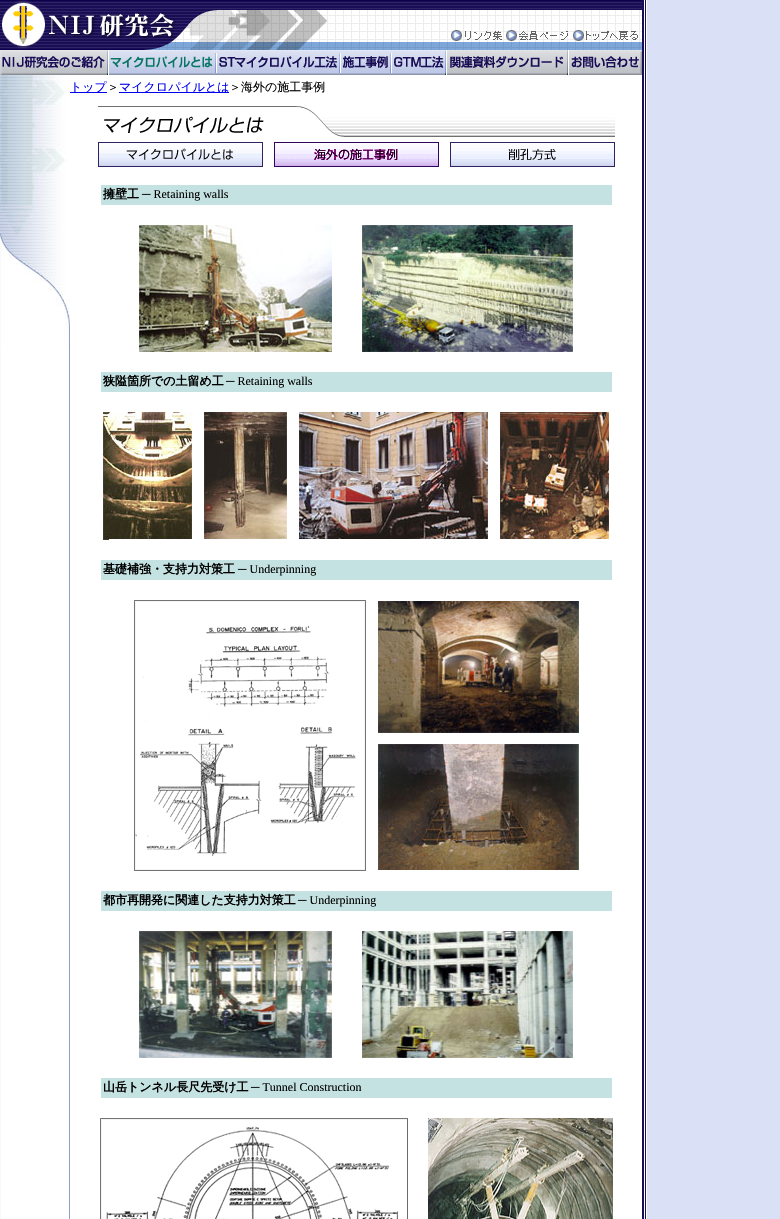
void draw(SkCanvas* canvas) {
	SkPaint fill;
	fill.setAntiAlias(true);
	auto makeFont = [&](const char* family, int weight, float size, bool italic = false) {
		SkFontStyle style(weight, SkFontStyle::kNormal_Width,
			italic ? SkFontStyle::kItalic_Slant : SkFontStyle::kUpright_Slant);
		SkFont result(fontMgr->matchFamilyStyle(family, style), size);
		result.setSubpixel(true);
		return result;
	};
	auto text = [&](const char* s, float x, float y, const SkFont& font) {
		canvas->drawString(s, x, y, font, fill);
	};
	auto box = [&](float l, float t, float r, float b) {
		canvas->drawRect(SkRect::MakeLTRB(l, t, r, b), fill);
	};
	auto picture = [&](const char* path, float l, float t, float r, float b) {
		auto image = SkImages::DeferredFromEncodedData(SkData::MakeFromFileName(path));
		canvas->drawImageRect(image, SkRect::MakeLTRB(l, t, r, b), SkSamplingOptions());
	};
	canvas->clear(0xFFDAE1F6);
	picture("image0.png", 0, 0, 175, 50);
	picture("image1.png", 175, 0, 642, 28);
	picture("image2.png", 175, 28, 449, 42);
	picture("image3.png", 449, 28, 504, 42);
	picture("image4.png", 504, 28, 571, 42);
	picture("image5.png", 571, 28, 642, 42);
	picture("image6.png", 175, 42, 642, 50);
	picture("image7.png", 642, 0, 647, 1219);
	picture("image8.png", 0, 50, 108, 75);
	picture("image9.png", 108, 50, 216, 75);
	picture("image10.png", 216, 50, 340, 75);
	picture("image11.png", 340, 50, 391, 75);
	picture("image12.png", 391, 50, 446, 75);
	picture("image13.png", 446, 50, 568, 75);
	picture("image14.png", 568, 50, 642, 75);
	picture("image15.png", 0, 348, 70, 1219);
	picture("image16.png", 0, 75, 70, 348);
	fill.setColor(0xFFFFFFFF);
	box(70, 75, 642, 1219);
	fill.setColor(0xFF0000EE);
	box(70, 92, 107, 93);
	box(119, 92, 229, 93);
	picture("image17.png", 98, 106, 615, 137);
	picture("image18.png", 98, 142, 263, 167);
	picture("image19.png", 274, 142, 439, 167);
	picture("image20.png", 450, 142, 615, 167);
	fill.setColor(0xFFC5E2E2);
	box(101, 185, 612, 205);
	picture("image21.png", 139, 225, 332, 352);
	picture("image22.png", 362, 225, 573, 352);
	box(101, 372, 612, 392);
	picture("image23.png", 103, 412, 192, 540);
	picture("image24.png", 204, 412, 287, 539);
	picture("image25.png", 299, 412, 488, 539);
	picture("image26.png", 500, 412, 609, 539);
	box(101, 560, 612, 580);
	picture("image27.png", 134, 600, 366, 871);
	picture("image28.png", 378, 601, 579, 733);
	picture("image29.png", 378, 744, 579, 870);
	box(101, 891, 612, 911);
	picture("image30.png", 139, 931, 332, 1058);
	picture("image31.png", 362, 931, 573, 1058);
	box(101, 1078, 612, 1098);
	picture("image32.png", 100, 1118, 408, 1219);
	picture("image33.png", 428, 1118, 613, 1219);
	auto font1 = makeFont("WenQuanYi Zen Hei", 500, 12);
	fill.setColor(0xFF0000EE);
	text("トップ", 70, 91, font1);
	fill.setColor(0xFF000000);
	text("＞", 107, 91, font1);
	fill.setColor(0xFF0000EE);
	text("マイクロパイルとは", 119, 91, font1);
	fill.setColor(0xFF000000);
	text("＞海外の施工事例", 229, 91, font1);
	auto font2 = makeFont("WenQuanYi Zen Hei", 700, 12);
	text("擁壁工", 103, 198, font2);
	auto font3 = makeFont("Liberation Serif", 400, 12);
	text("─ Retaining walls", 142, 198, font3);
	text("狭隘箇所での土留め工", 103, 385, font2);
	text("─ Retaining walls", 226, 385, font3);
	text("基礎補強・支持力対策工", 103, 573, font2);
	text("─ Underpinning", 238, 573, font3);
	text("都市再開発に関連した支持力対策工", 103, 904, font2);
	text("─ Underpinning", 298, 904, font3);
	text("山岳トンネル長尺先受け工", 103, 1091, font2);
	text("─ Tunnel Construction", 251, 1091, font3);
}
